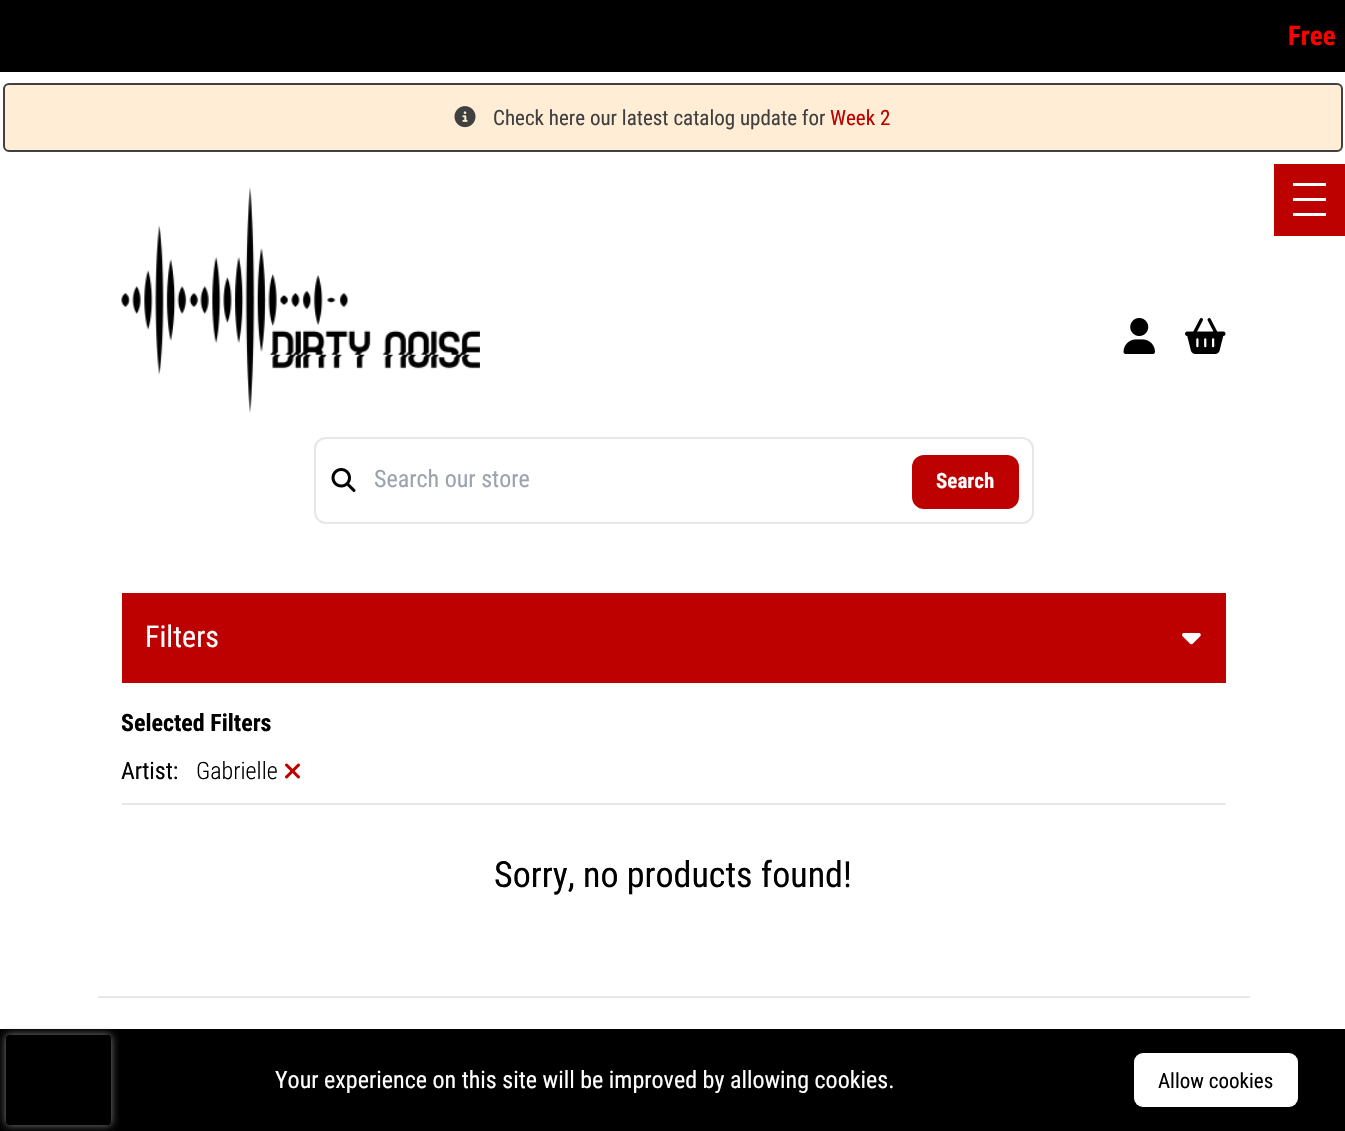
void draw(SkCanvas* canvas) {
	SkPaint fill;
	fill.setAntiAlias(true);
	auto makeFont = [&](const char* family, int weight, float size, bool italic = false) {
		SkFontStyle style(weight, SkFontStyle::kNormal_Width,
			italic ? SkFontStyle::kItalic_Slant : SkFontStyle::kUpright_Slant);
		SkFont result(fontMgr->matchFamilyStyle(family, style), size);
		result.setSubpixel(true);
		return result;
	};
	auto text = [&](const char* s, float x, float y, const SkFont& font) {
		canvas->drawString(s, x, y, font, fill);
	};
	auto box = [&](float l, float t, float r, float b) {
		canvas->drawRect(SkRect::MakeLTRB(l, t, r, b), fill);
	};
	auto roundBox = [&](float l, float t, float r, float b, float radius) {
		canvas->drawRoundRect(SkRect::MakeLTRB(l, t, r, b), radius, radius, fill);
	};
	auto picture = [&](const char* path, float l, float t, float r, float b) {
		auto image = SkImages::DeferredFromEncodedData(SkData::MakeFromFileName(path));
		canvas->drawImageRect(image, SkRect::MakeLTRB(l, t, r, b), SkSamplingOptions());
	};
	canvas->clear(0xFFFFFFFF);
	fill.setColor(0xFF000000);
	box(0, 0, 1345, 72);
	fill.setColor(0xFFFFEDD5);
	canvas->drawRoundRect(SkRect::MakeLTRB(4, 84, 1342, 151), 5, 5, fill);
	fill.setStyle(SkPaint::kStroke_Style);
	fill.setStrokeWidth(2);
	fill.setColor(0xFF404040);
	canvas->drawRoundRect(SkRect::MakeLTRB(4, 84, 1342, 151), 5, 5, fill);
	picture("image0.png", 454, 106, 476, 128);
	picture("image1.png", 121, 187, 480, 413);
	picture("image2.png", 1123, 318, 1155, 354);
	picture("image3.png", 1185, 318, 1226, 354);
	fill.setStyle(SkPaint::kFill_Style);
	fill.setColor(0xFFBD0000);
	box(1274, 164, 1345, 236);
	fill.setColor(0xFFFFFFFF);
	box(1293, 183, 1326, 186);
	box(1293, 198, 1326, 201);
	box(1293, 213, 1326, 216);
	fill.setStyle(SkPaint::kStroke_Style);
	fill.setColor(0xFFE5E7EB);
	canvas->drawRoundRect(SkRect::MakeLTRB(315, 438, 1033, 523), 11, 11, fill);
	picture("image4.png", 331, 468, 356, 492);
	fill.setStyle(SkPaint::kFill_Style);
	fill.setColor(0xFFBD0000);
	roundBox(912, 455, 1019, 509, 12);
	box(122, 593, 1226, 683);
	picture("image5.png", 1182, 633, 1201, 645);
	fill.setColor(0xFFE5E7EB);
	box(122, 803, 1226, 805);
	picture("image6.png", 285, 763, 300, 779);
	box(98, 996, 1250, 998);
	fill.setColor(0xFF000000);
	box(0, 1029, 1345, 1131);
	canvas->save();
	canvas->clipPath(SkPathBuilder(SkPathFillType::kEvenOdd).moveTo(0, 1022).lineTo(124, 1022).lineTo(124, 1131).lineTo(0, 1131).close().moveTo(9, 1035).lineTo(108, 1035).cubicTo(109.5f, 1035, 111, 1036.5f, 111, 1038).lineTo(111, 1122).cubicTo(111, 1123.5f, 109.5f, 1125, 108, 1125).lineTo(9, 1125).cubicTo(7.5f, 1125, 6, 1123.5f, 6, 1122).lineTo(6, 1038).cubicTo(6, 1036.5f, 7.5f, 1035, 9, 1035).close().detach(), true);
	fill.setColor(0xFF808080);
	fill.setMaskFilter(SkMaskFilter::MakeBlur(kNormal_SkBlurStyle, 4));
	canvas->drawRoundRect(SkRect::MakeLTRB(6, 1035, 111, 1125), 3, 3, fill);
	fill.setMaskFilter(nullptr);
	canvas->restore();
	fill.setColor(0xFFFFFFFF);
	roundBox(1134, 1053, 1298, 1107, 9);
	auto font1 = makeFont("Roboto Condensed", 700, 27);
	fill.setColor(0xFFFF0000);
	text("Free", 1288, 45, font1);
	auto font2 = makeFont("Roboto Condensed", 400, 21);
	fill.setColor(0xFF404040);
	text("Check here our latest catalog update for", 493, 125, font2);
	fill.setColor(0xFFBD0000);
	text("Week 2", 830, 125, font2);
	auto font3 = makeFont("Roboto Condensed", 400, 24);
	fill.setColor(0xFF9CA3AF);
	text("Search our store", 374, 487, font3);
	auto font4 = makeFont("Roboto Condensed", 700, 21);
	fill.setColor(0xFFFFFFFF);
	text("Search", 936, 488, font4);
	auto font5 = makeFont("Roboto Condensed", 400, 30);
	text("Filters", 145, 647, font5);
	auto font6 = makeFont("Roboto Condensed", 700, 24);
	fill.setColor(0xFF000000);
	text("Selected Filters", 121, 731, font6);
	text("Artist:", 121, 779, font3);
	auto font7 = makeFont("Roboto Condensed", 300, 24);
	text("Gabrielle", 196, 779, font7);
	auto font8 = makeFont("Roboto Condensed", 400, 36);
	text("Sorry, no products found!", 494, 887, font8);
	fill.setColor(0xFFFFFFFF);
	text("Your experience on this site will be improved by allowing cookies.", 275, 1088, font3);
	fill.setColor(0xFF000000);
	text("Allow cookies", 1158, 1088, font2);
}
